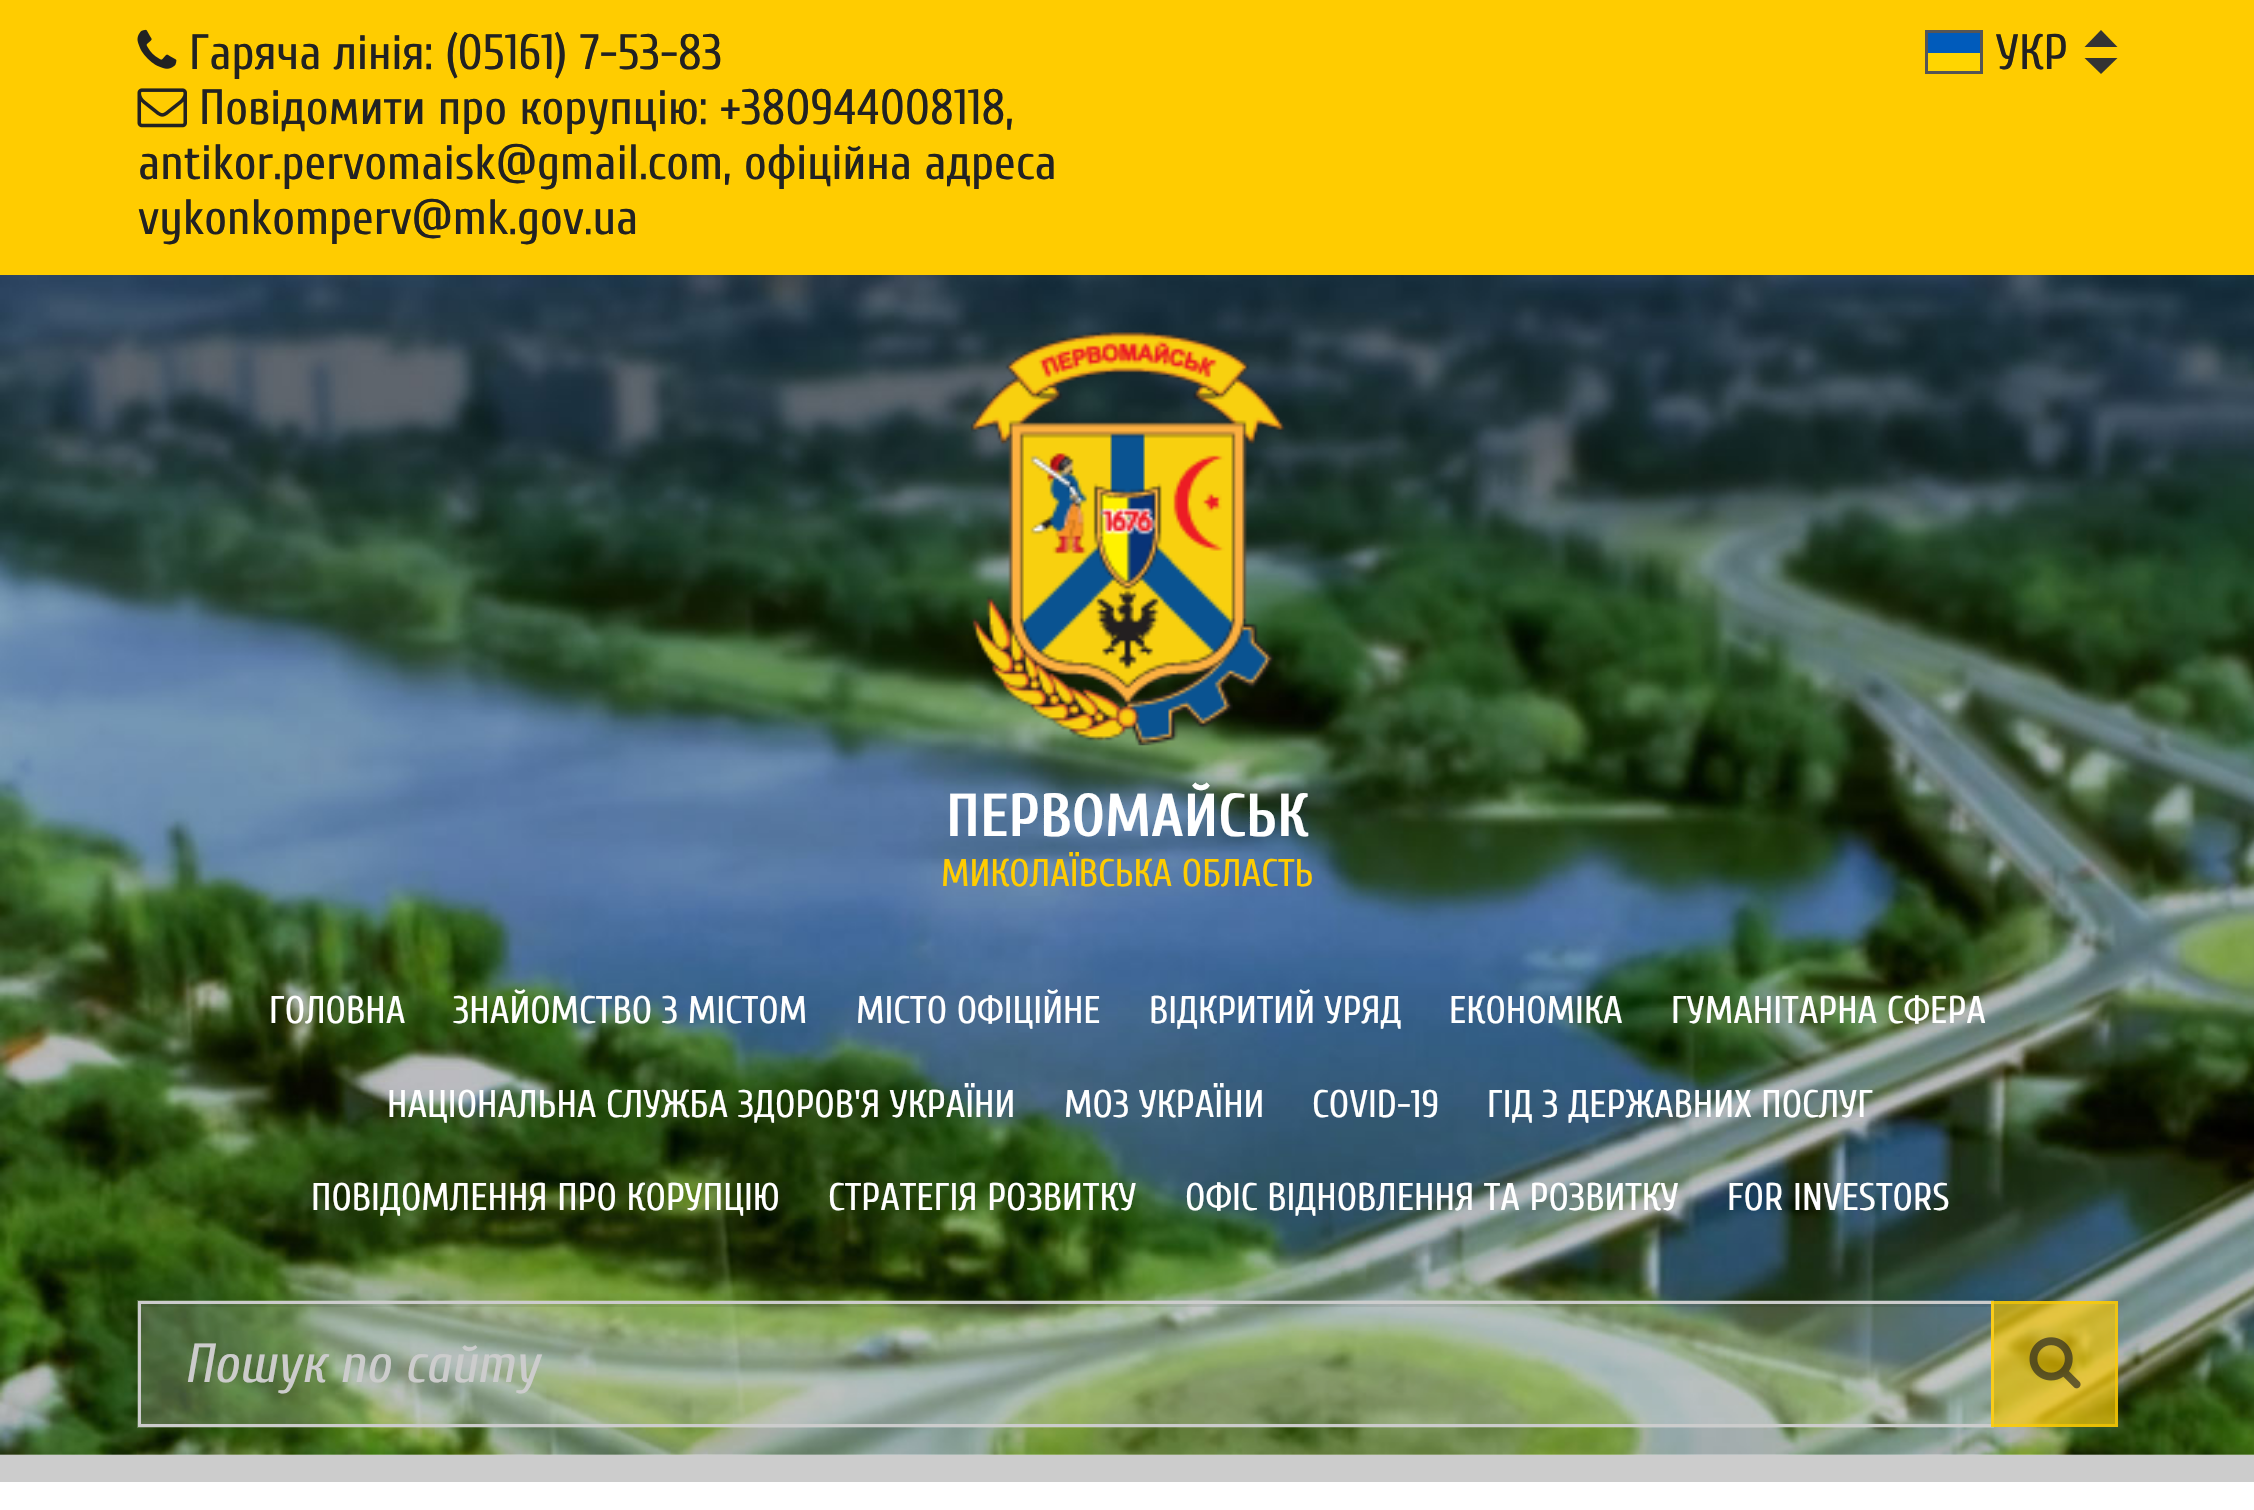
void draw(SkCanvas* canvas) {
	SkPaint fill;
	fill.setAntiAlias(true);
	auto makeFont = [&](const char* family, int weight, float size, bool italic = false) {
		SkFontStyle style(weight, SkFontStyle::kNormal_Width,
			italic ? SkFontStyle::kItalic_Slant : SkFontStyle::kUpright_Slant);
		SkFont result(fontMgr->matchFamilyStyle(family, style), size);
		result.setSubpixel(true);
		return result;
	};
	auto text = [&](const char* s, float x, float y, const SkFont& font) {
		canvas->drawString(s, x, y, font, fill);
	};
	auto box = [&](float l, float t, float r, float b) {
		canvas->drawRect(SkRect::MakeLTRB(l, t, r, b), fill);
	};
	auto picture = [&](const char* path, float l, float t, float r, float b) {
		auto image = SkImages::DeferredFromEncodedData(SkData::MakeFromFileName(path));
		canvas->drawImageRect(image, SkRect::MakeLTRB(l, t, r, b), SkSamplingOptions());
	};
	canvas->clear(0xFFFFFFFF);
	fill.setColor(0xFFFFCC00);
	box(0, 0, 2254, 275);
	picture("image0.png", 137, 29, 177, 69);
	picture("image1.png", 137, 88, 187, 128);
	fill.setColor(0xFFFFD500);
	box(1928, 53, 1980, 71);
	fill.setColor(0xFF005BBB);
	box(1928, 33, 1980, 53);
	fill.setStyle(SkPaint::kStroke_Style);
	fill.setStrokeWidth(3);
	fill.setColor(0xFF555555);
	canvas->drawRect(SkRect::MakeLTRB(1926.5f, 31.5f, 1981.5f, 72.5f), fill);
	fill.setStyle(SkPaint::kFill_Style);
	fill.setColor(0xFF333333);
	canvas->drawPath(SkPathBuilder().moveTo(2117.5f, 47).lineTo(2084.5f, 47).lineTo(2101, 30).close().detach(), fill);
	canvas->drawPath(SkPathBuilder().moveTo(2084.5f, 58).lineTo(2117.5f, 58).lineTo(2101, 74).close().detach(), fill);
	picture("image2.png", 0, 275, 2254, 1455);
	fill.setColor(0xFFCCCCCC);
	box(0, 1455, 2254, 1482);
	picture("image3.png", 970, 330, 1285, 746);
	fill.setColor(0x33FFFFFF);
	box(137, 1300, 1994, 1428);
	fill.setColor(0x12000000);
	box(140, 1304, 1991, 1307);
	fill.setStyle(SkPaint::kStroke_Style);
	fill.setColor(0xFFCCCCCC);
	canvas->drawRect(SkRect::MakeLTRB(139.5f, 1302.5f, 1992.5f, 1425.5f), fill);
	fill.setStyle(SkPaint::kFill_Style);
	fill.setColor(0xA6FFCC00);
	box(1991, 1301, 2118, 1427);
	fill.setStyle(SkPaint::kStroke_Style);
	canvas->drawRect(SkRect::MakeLTRB(1992.5f, 1302.5f, 2116.5f, 1425.5f), fill);
	picture("image4.png", 2029, 1337, 2081, 1389);
	auto font1 = makeFont("Cuprum", 400, 49.5f);
	fill.setStyle(SkPaint::kFill_Style);
	fill.setColor(0xFF222222);
	text("Гаряча лінія: (05161) 7-53-83", 189, 69, font1);
	text("Повідомити про корупцію: +380944008118,", 199, 124, font1);
	text("antikor.pervomaisk@gmail.com, офіційна адреса", 138, 179, font1);
	text("vykonkomperv@mk.gov.ua", 138, 234, font1);
	text("УКР", 1996, 69, font1);
	auto font2 = makeFont("Cuprum", 700, 60.5f);
	fill.setColor(0xFFFFFFFF);
	text("ПЕРВОМАЙСЬК", 946, 836, font2);
	auto font3 = makeFont("Cuprum", 400, 38.5f);
	fill.setColor(0xFFFFCC00);
	text("МИКОЛАЇВСЬКА ОБЛАСТЬ", 941, 886, font3);
	fill.setColor(0xFFFFFFFF);
	text("ГОЛОВНА", 269, 1023, font3);
	text("ЗНАЙОМСТВО З МІСТОМ", 453, 1023, font3);
	text("МІСТО ОФІЦІЙНЕ", 856, 1023, font3);
	text("ВІДКРИТИЙ УРЯД", 1149, 1023, font3);
	text("ЕКОНОМІКА", 1449, 1023, font3);
	text("ГУМАНІТАРНА СФЕРА", 1671, 1023, font3);
	text("НАЦІОНАЛЬНА СЛУЖБА ЗДОРОВ'Я УКРАЇНИ", 387, 1117, font3);
	text("МОЗ УКРАЇНИ", 1064, 1117, font3);
	text("COVID-19", 1312, 1117, font3);
	text("ГІД З ДЕРЖАВНИХ ПОСЛУГ", 1487, 1117, font3);
	text("ПОВІДОМЛЕННЯ ПРО КОРУПЦІЮ", 311, 1210, font3);
	text("СТРАТЕГІЯ РОЗВИТКУ", 828, 1210, font3);
	text("ОФІС ВІДНОВЛЕННЯ ТА РОЗВИТКУ", 1185, 1210, font3);
	text("FOR INVESTORS", 1727, 1210, font3);
	auto font4 = makeFont("Cuprum", 400, 55, true);
	fill.setColor(0xFFCCCCCC);
	text("Пошук по сайту", 184, 1382, font4);
}
